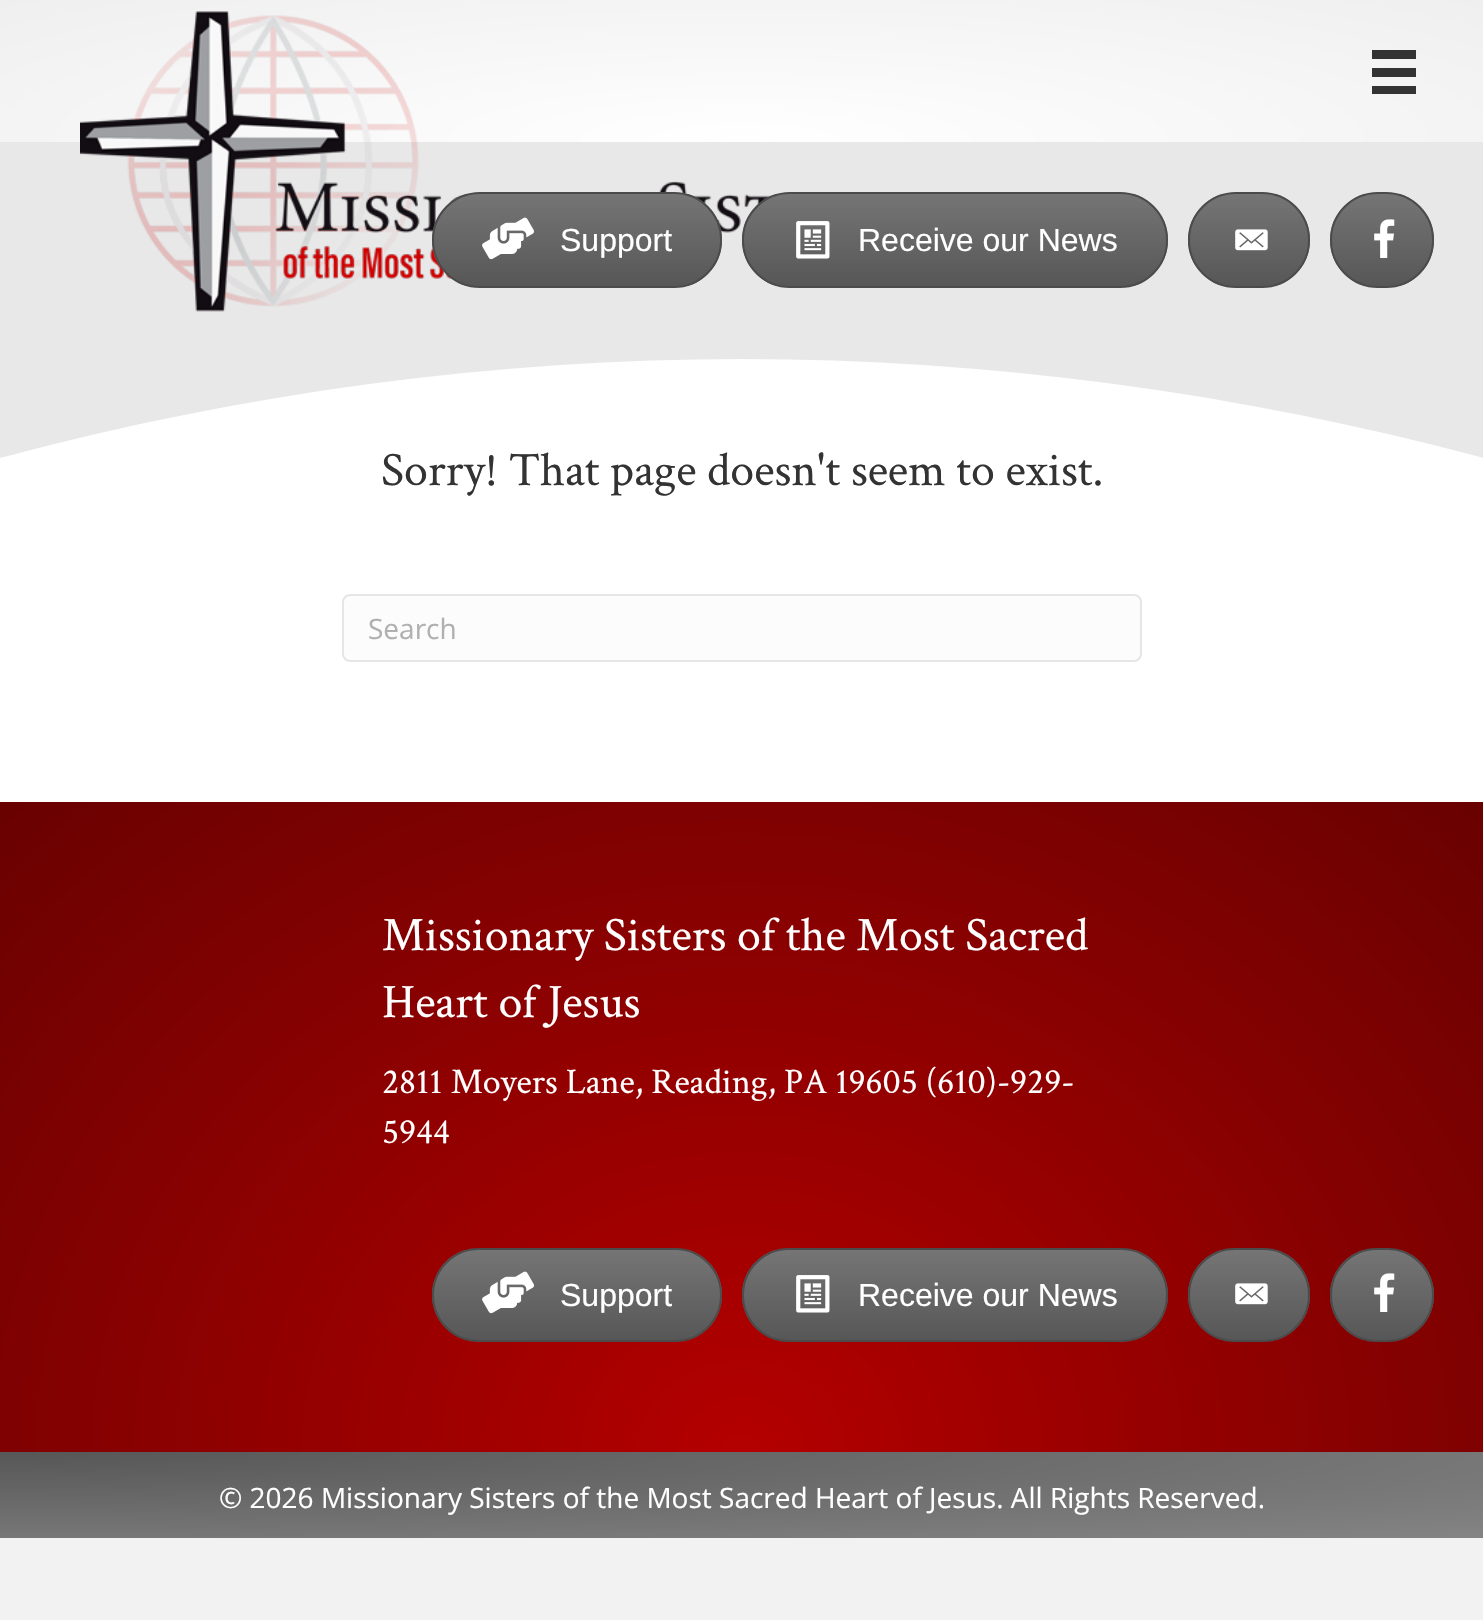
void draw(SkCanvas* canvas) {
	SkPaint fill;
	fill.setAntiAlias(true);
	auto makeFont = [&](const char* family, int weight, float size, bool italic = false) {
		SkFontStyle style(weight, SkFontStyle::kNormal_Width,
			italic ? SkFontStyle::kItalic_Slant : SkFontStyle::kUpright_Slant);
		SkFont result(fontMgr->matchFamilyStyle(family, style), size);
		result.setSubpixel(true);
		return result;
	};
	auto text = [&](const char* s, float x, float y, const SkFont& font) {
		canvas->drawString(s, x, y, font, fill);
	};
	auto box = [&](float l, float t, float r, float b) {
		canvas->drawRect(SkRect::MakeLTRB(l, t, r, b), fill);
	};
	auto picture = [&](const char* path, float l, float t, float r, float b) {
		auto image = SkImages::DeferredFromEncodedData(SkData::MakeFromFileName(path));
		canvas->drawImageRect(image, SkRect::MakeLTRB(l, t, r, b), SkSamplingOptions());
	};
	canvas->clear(0xFFF2F2F2);
	{
		const SkColor colors[] = {0xFFFFFFFF, 0xFFEFEFEF};
		const float stops[] = {0, 1};
		SkMatrix m = SkMatrix::Translate(742, 142).preScale(1049, 201);
		fill.setShader(SkGradientShader::MakeRadial({0, 0}, 1, colors, stops, 2, SkTileMode::kClamp, 0, &m));
		fill.setAlpha(255);
	}
	box(0, 0, 1483, 142);
	fill.setShader(nullptr);
	fill.setColor(0xFFE8E8E8);
	box(0, 142, 1483, 338);
	picture("image0.png", 80, 11, 777, 312);
	fill.setColor(0xFF333333);
	box(1372, 50, 1416, 59);
	box(1372, 68, 1416, 77);
	box(1372, 86, 1416, 94);
	canvas->save();
	canvas->clipPath(SkPathBuilder().moveTo(480, 192).lineTo(674, 192).cubicTo(700.5f, 192, 722, 213.5f, 722, 240).cubicTo(722, 266.5f, 700.5f, 288, 674, 288).lineTo(480, 288).cubicTo(453.5f, 288, 432, 266.5f, 432, 240).cubicTo(432, 213.5f, 453.5f, 192, 480, 192).close().detach(), true);
	{
		const SkColor colors[] = {0xFF757575, 0xFF575757};
		const float stops[] = {0, 1};
		const SkPoint ends[] = {{577, 194}, {577, 286}};
		fill.setShader(SkGradientShader::MakeLinear(ends, colors, stops, 2, SkTileMode::kClamp));
		fill.setAlpha(255);
	}
	box(432, 194, 722, 286);
	canvas->restore();
	fill.setStyle(SkPaint::kStroke_Style);
	fill.setStrokeWidth(2);
	fill.setShader(nullptr);
	fill.setColor(0xFF4B4B4B);
	canvas->drawRoundRect(SkRect::MakeLTRB(433, 193, 721, 287), 47, 47, fill);
	picture("image1.png", 482, 217, 534, 260);
	canvas->save();
	canvas->clipPath(SkPathBuilder().moveTo(790, 192).lineTo(1120, 192).cubicTo(1146.5f, 192, 1168, 213.5f, 1168, 240).cubicTo(1168, 266.5f, 1146.5f, 288, 1120, 288).lineTo(790, 288).cubicTo(763.5f, 288, 742, 266.5f, 742, 240).cubicTo(742, 213.5f, 763.5f, 192, 790, 192).close().detach(), true);
	fill.setStyle(SkPaint::kFill_Style);
	{
		const SkColor colors[] = {0xFF757575, 0xFF575757};
		const float stops[] = {0, 1};
		const SkPoint ends[] = {{955, 194}, {955, 286}};
		fill.setShader(SkGradientShader::MakeLinear(ends, colors, stops, 2, SkTileMode::kClamp));
		fill.setAlpha(255);
	}
	box(742, 194, 1168, 286);
	canvas->restore();
	fill.setStyle(SkPaint::kStroke_Style);
	fill.setShader(nullptr);
	fill.setColor(0xFF4B4B4B);
	canvas->drawRoundRect(SkRect::MakeLTRB(743, 193, 1167, 287), 47, 47, fill);
	picture("image2.png", 796, 221, 830, 259);
	canvas->save();
	canvas->clipPath(SkPathBuilder().moveTo(1236, 192).lineTo(1262, 192).cubicTo(1288.5f, 192, 1310, 213.5f, 1310, 240).cubicTo(1310, 266.5f, 1288.5f, 288, 1262, 288).lineTo(1236, 288).cubicTo(1209.5f, 288, 1188, 266.5f, 1188, 240).cubicTo(1188, 213.5f, 1209.5f, 192, 1236, 192).close().detach(), true);
	fill.setStyle(SkPaint::kFill_Style);
	{
		const SkColor colors[] = {0xFF757575, 0xFF575757};
		const float stops[] = {0, 1};
		const SkPoint ends[] = {{1249, 194}, {1249, 286}};
		fill.setShader(SkGradientShader::MakeLinear(ends, colors, stops, 2, SkTileMode::kClamp));
		fill.setAlpha(255);
	}
	box(1188, 194, 1310, 286);
	canvas->restore();
	fill.setStyle(SkPaint::kStroke_Style);
	fill.setShader(nullptr);
	fill.setColor(0xFF4B4B4B);
	canvas->drawRoundRect(SkRect::MakeLTRB(1189, 193, 1309, 287), 47, 47, fill);
	picture("image3.png", 1235, 229, 1268, 251);
	canvas->save();
	canvas->clipPath(SkPathBuilder().moveTo(1378, 192).lineTo(1386, 192).cubicTo(1412.5f, 192, 1434, 213.5f, 1434, 240).cubicTo(1434, 266.5f, 1412.5f, 288, 1386, 288).lineTo(1378, 288).cubicTo(1351.5f, 288, 1330, 266.5f, 1330, 240).cubicTo(1330, 213.5f, 1351.5f, 192, 1378, 192).close().detach(), true);
	fill.setStyle(SkPaint::kFill_Style);
	{
		const SkColor colors[] = {0xFF757575, 0xFF575757};
		const float stops[] = {0, 1};
		const SkPoint ends[] = {{1382, 194}, {1382, 286}};
		fill.setShader(SkGradientShader::MakeLinear(ends, colors, stops, 2, SkTileMode::kClamp));
		fill.setAlpha(255);
	}
	box(1330, 194, 1434, 286);
	canvas->restore();
	fill.setStyle(SkPaint::kStroke_Style);
	fill.setShader(nullptr);
	fill.setColor(0xFF4B4B4B);
	canvas->drawRoundRect(SkRect::MakeLTRB(1331, 193, 1433, 287), 47, 47, fill);
	picture("image4.png", 1374, 219, 1395, 258);
	fill.setStyle(SkPaint::kFill_Style);
	fill.setColor(0xFFFFFFFF);
	box(0, 359, 1483, 802);
	fill.setColor(0xFFFCFCFC);
	canvas->drawRoundRect(SkRect::MakeLTRB(343, 595, 1141, 661), 7, 7, fill);
	fill.setStyle(SkPaint::kStroke_Style);
	fill.setColor(0xFFE6E6E6);
	canvas->drawRoundRect(SkRect::MakeLTRB(343, 595, 1141, 661), 7, 7, fill);
	fill.setStyle(SkPaint::kFill_Style);
	{
		const SkColor colors[] = {0xFFB40000, 0xFF690101};
		const float stops[] = {0, 1};
		SkMatrix m = SkMatrix::Translate(742, 1452).preScale(1049, 919);
		fill.setShader(SkGradientShader::MakeRadial({0, 0}, 1, colors, stops, 2, SkTileMode::kClamp, 0, &m));
		fill.setAlpha(255);
	}
	box(0, 802, 1483, 1452);
	canvas->save();
	canvas->clipPath(SkPathBuilder().moveTo(479, 1248).lineTo(675, 1248).cubicTo(701, 1248, 722, 1269, 722, 1295).cubicTo(722, 1321, 701, 1342, 675, 1342).lineTo(479, 1342).cubicTo(453, 1342, 432, 1321, 432, 1295).cubicTo(432, 1269, 453, 1248, 479, 1248).close().detach(), true);
	{
		const SkColor colors[] = {0xFF757575, 0xFF575757};
		const float stops[] = {0, 1};
		const SkPoint ends[] = {{577, 1250}, {577, 1340}};
		fill.setShader(SkGradientShader::MakeLinear(ends, colors, stops, 2, SkTileMode::kClamp));
		fill.setAlpha(255);
	}
	box(432, 1250, 722, 1340);
	canvas->restore();
	fill.setStyle(SkPaint::kStroke_Style);
	fill.setShader(nullptr);
	fill.setColor(0xFF4B4B4B);
	canvas->drawRoundRect(SkRect::MakeLTRB(433, 1249, 721, 1341), 46, 46, fill);
	picture("image5.png", 482, 1271, 534, 1314);
	canvas->save();
	canvas->clipPath(SkPathBuilder().moveTo(789, 1248).lineTo(1121, 1248).cubicTo(1147, 1248, 1168, 1269, 1168, 1295).cubicTo(1168, 1321, 1147, 1342, 1121, 1342).lineTo(789, 1342).cubicTo(763, 1342, 742, 1321, 742, 1295).cubicTo(742, 1269, 763, 1248, 789, 1248).close().detach(), true);
	fill.setStyle(SkPaint::kFill_Style);
	{
		const SkColor colors[] = {0xFF757575, 0xFF575757};
		const float stops[] = {0, 1};
		const SkPoint ends[] = {{955, 1250}, {955, 1340}};
		fill.setShader(SkGradientShader::MakeLinear(ends, colors, stops, 2, SkTileMode::kClamp));
		fill.setAlpha(255);
	}
	box(742, 1250, 1168, 1340);
	canvas->restore();
	fill.setStyle(SkPaint::kStroke_Style);
	fill.setShader(nullptr);
	fill.setColor(0xFF4B4B4B);
	canvas->drawRoundRect(SkRect::MakeLTRB(743, 1249, 1167, 1341), 46, 46, fill);
	picture("image6.png", 796, 1275, 830, 1313);
	canvas->save();
	canvas->clipPath(SkPathBuilder().moveTo(1235, 1248).lineTo(1263, 1248).cubicTo(1289, 1248, 1310, 1269, 1310, 1295).cubicTo(1310, 1321, 1289, 1342, 1263, 1342).lineTo(1235, 1342).cubicTo(1209, 1342, 1188, 1321, 1188, 1295).cubicTo(1188, 1269, 1209, 1248, 1235, 1248).close().detach(), true);
	fill.setStyle(SkPaint::kFill_Style);
	{
		const SkColor colors[] = {0xFF757575, 0xFF575757};
		const float stops[] = {0, 1};
		const SkPoint ends[] = {{1249, 1250}, {1249, 1340}};
		fill.setShader(SkGradientShader::MakeLinear(ends, colors, stops, 2, SkTileMode::kClamp));
		fill.setAlpha(255);
	}
	box(1188, 1250, 1310, 1340);
	canvas->restore();
	fill.setStyle(SkPaint::kStroke_Style);
	fill.setShader(nullptr);
	fill.setColor(0xFF4B4B4B);
	canvas->drawRoundRect(SkRect::MakeLTRB(1189, 1249, 1309, 1341), 46, 46, fill);
	picture("image7.png", 1235, 1283, 1268, 1305);
	canvas->save();
	canvas->clipPath(SkPathBuilder().moveTo(1377, 1248).lineTo(1387, 1248).cubicTo(1413, 1248, 1434, 1269, 1434, 1295).cubicTo(1434, 1321, 1413, 1342, 1387, 1342).lineTo(1377, 1342).cubicTo(1351, 1342, 1330, 1321, 1330, 1295).cubicTo(1330, 1269, 1351, 1248, 1377, 1248).close().detach(), true);
	fill.setStyle(SkPaint::kFill_Style);
	{
		const SkColor colors[] = {0xFF757575, 0xFF575757};
		const float stops[] = {0, 1};
		const SkPoint ends[] = {{1382, 1250}, {1382, 1340}};
		fill.setShader(SkGradientShader::MakeLinear(ends, colors, stops, 2, SkTileMode::kClamp));
		fill.setAlpha(255);
	}
	box(1330, 1250, 1434, 1340);
	canvas->restore();
	fill.setStyle(SkPaint::kStroke_Style);
	fill.setShader(nullptr);
	fill.setColor(0xFF4B4B4B);
	canvas->drawRoundRect(SkRect::MakeLTRB(1331, 1249, 1433, 1341), 46, 46, fill);
	picture("image8.png", 1374, 1273, 1395, 1312);
	fill.setStyle(SkPaint::kFill_Style);
	{
		const SkColor colors[] = {0xFF575757, 0xFF848484};
		const float stops[] = {0, 1};
		SkMatrix m = SkMatrix::Translate(0, 1452).preScale(2099, 122);
		fill.setShader(SkGradientShader::MakeRadial({0, 0}, 1, colors, stops, 2, SkTileMode::kClamp, 0, &m));
		fill.setAlpha(255);
	}
	box(0, 1452, 1483, 1538);
	auto font1 = makeFont("Liberation Sans", 400, 32);
	fill.setShader(nullptr);
	fill.setColor(0xFFFFFFFF);
	text("Support", 560, 251, font1);
	text("Receive our News", 858, 251, font1);
	auto font2 = makeFont("Crimson Text", 400, 48);
	fill.setColor(0xFF333333);
	text("Sorry! That page doesn't seem to exist.", 381, 485, font2);
	fill.setColor(0xFFE8E8E8);
	canvas->drawPath(SkPathBuilder().moveTo(0, 338).lineTo(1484, 338).lineTo(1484, 458).cubicTo(1237, 392, 989, 359, 742, 359).cubicTo(495, 359, 247, 392, 0, 458).close().detach(), fill);
	auto font3 = makeFont("Open Sans", 400, 28);
	fill.setColor(0xFFB0B0B0);
	text("Search", 368, 639, font3);
	fill.setColor(0xFFFFFFFF);
	text("Missionary Sisters of the Most Sacred", 382, 950, font2);
	text("Heart of Jesus", 382, 1017, font2);
	auto font4 = makeFont("Crimson Text", 400, 36);
	text("2811 Moyers Lane, Reading, PA 19605 (610)-929-", 382, 1093, font4);
	text("5944", 382, 1143, font4);
	text("Support", 560, 1306, font1);
	text("Receive our News", 858, 1306, font1);
	text("© 2026 Missionary Sisters of the Most Sacred Heart of Jesus. All Rights Reserved.", 219, 1508, font3);
}
